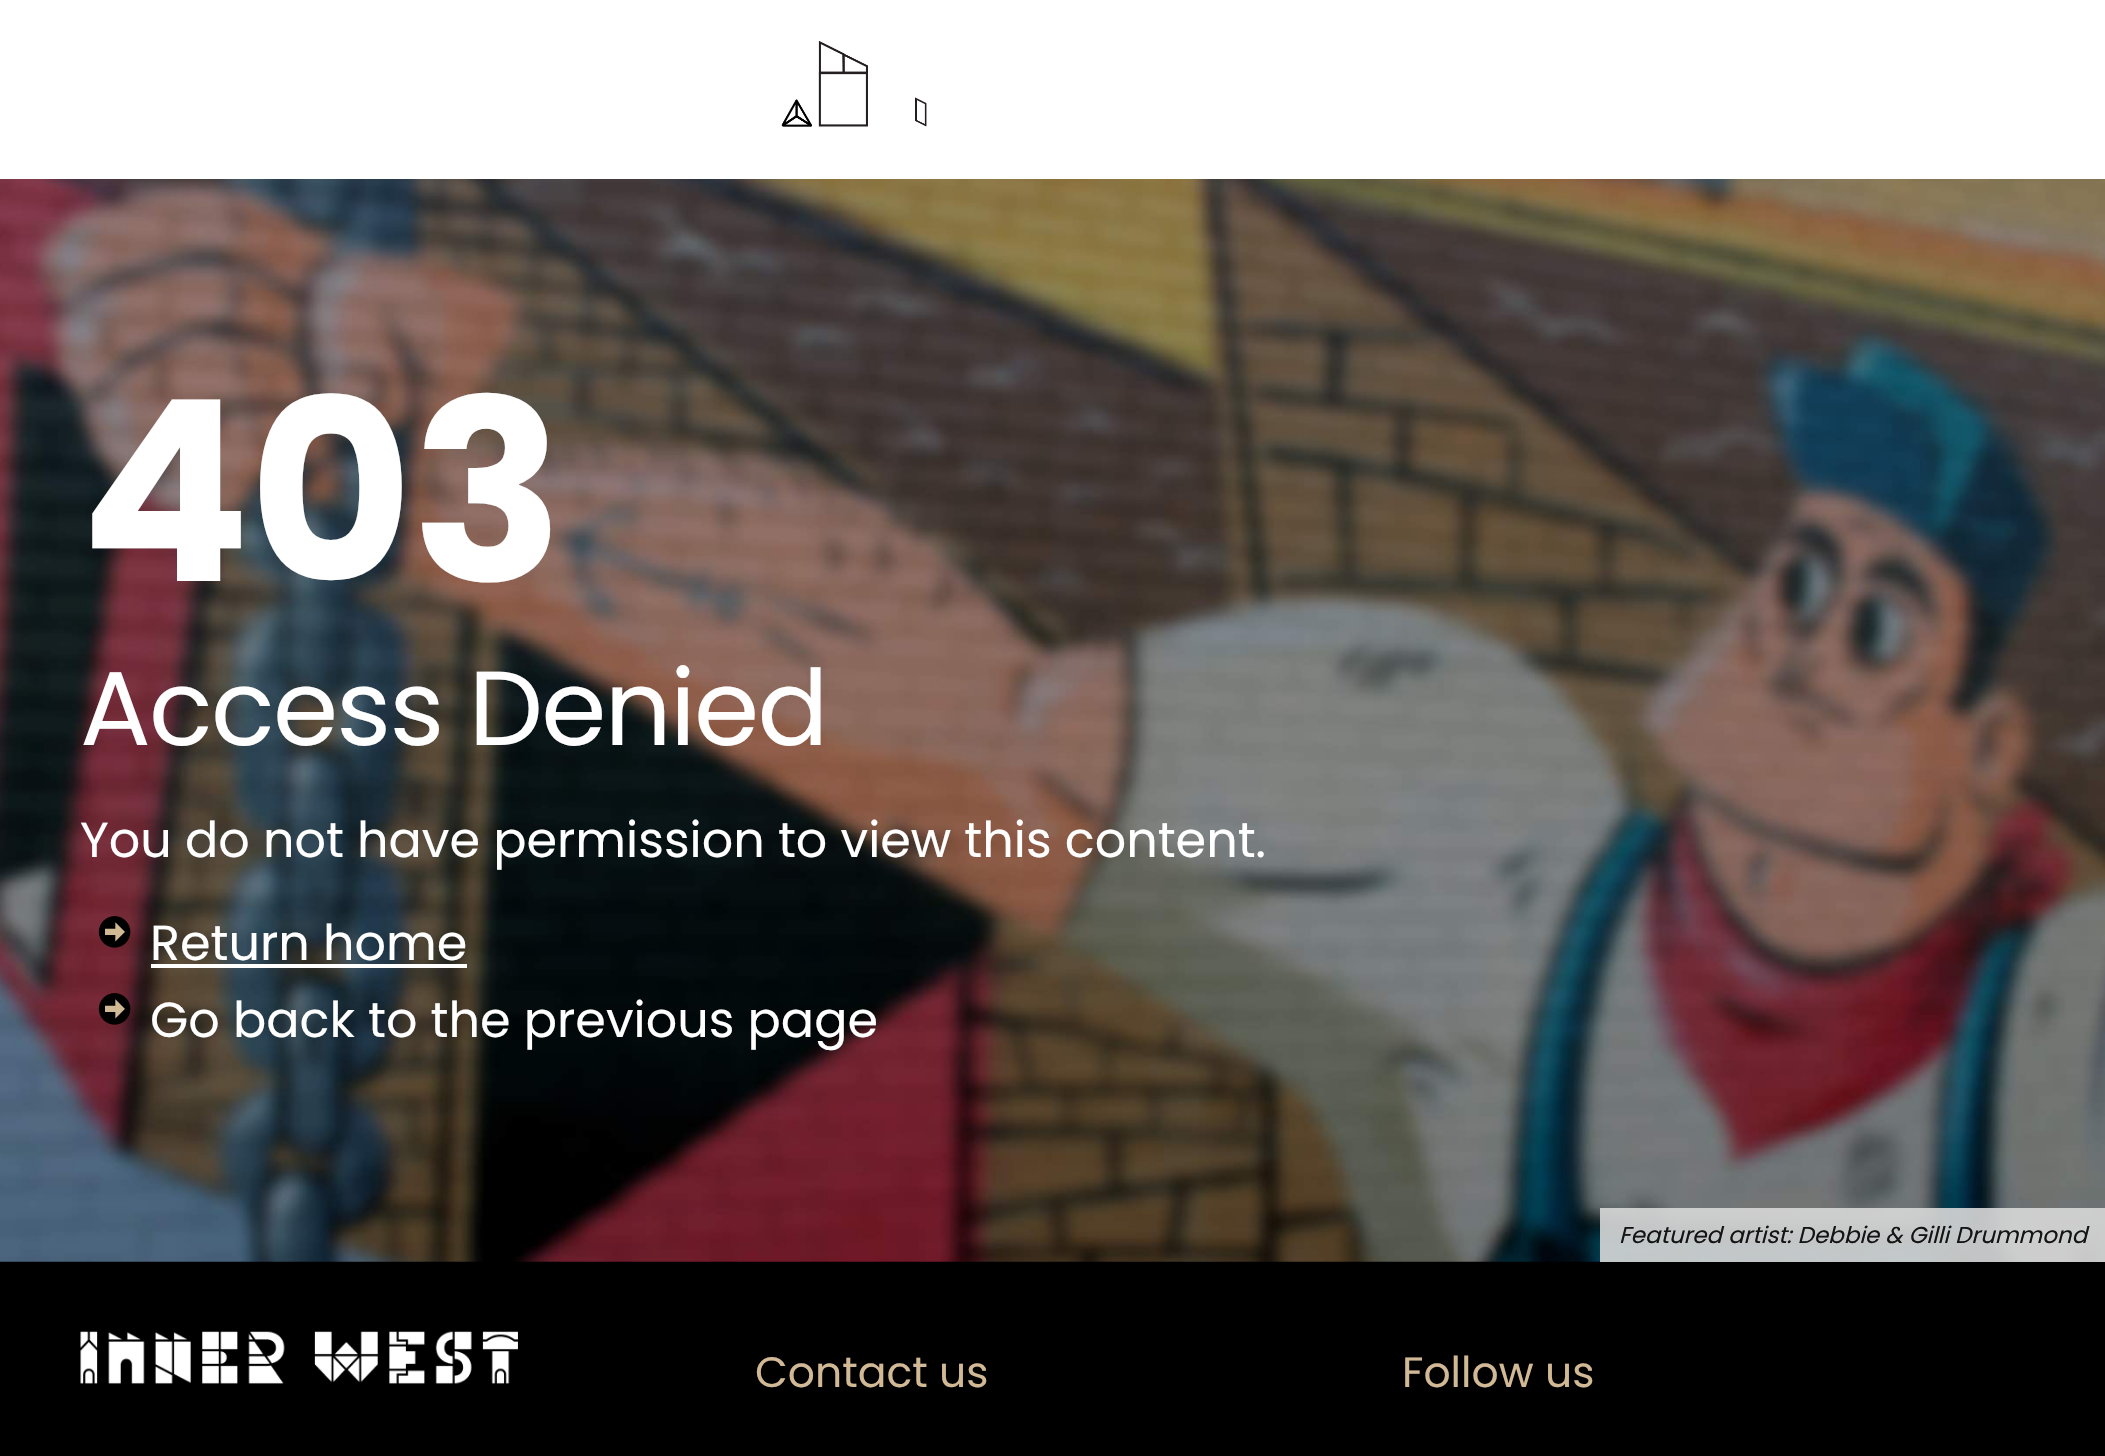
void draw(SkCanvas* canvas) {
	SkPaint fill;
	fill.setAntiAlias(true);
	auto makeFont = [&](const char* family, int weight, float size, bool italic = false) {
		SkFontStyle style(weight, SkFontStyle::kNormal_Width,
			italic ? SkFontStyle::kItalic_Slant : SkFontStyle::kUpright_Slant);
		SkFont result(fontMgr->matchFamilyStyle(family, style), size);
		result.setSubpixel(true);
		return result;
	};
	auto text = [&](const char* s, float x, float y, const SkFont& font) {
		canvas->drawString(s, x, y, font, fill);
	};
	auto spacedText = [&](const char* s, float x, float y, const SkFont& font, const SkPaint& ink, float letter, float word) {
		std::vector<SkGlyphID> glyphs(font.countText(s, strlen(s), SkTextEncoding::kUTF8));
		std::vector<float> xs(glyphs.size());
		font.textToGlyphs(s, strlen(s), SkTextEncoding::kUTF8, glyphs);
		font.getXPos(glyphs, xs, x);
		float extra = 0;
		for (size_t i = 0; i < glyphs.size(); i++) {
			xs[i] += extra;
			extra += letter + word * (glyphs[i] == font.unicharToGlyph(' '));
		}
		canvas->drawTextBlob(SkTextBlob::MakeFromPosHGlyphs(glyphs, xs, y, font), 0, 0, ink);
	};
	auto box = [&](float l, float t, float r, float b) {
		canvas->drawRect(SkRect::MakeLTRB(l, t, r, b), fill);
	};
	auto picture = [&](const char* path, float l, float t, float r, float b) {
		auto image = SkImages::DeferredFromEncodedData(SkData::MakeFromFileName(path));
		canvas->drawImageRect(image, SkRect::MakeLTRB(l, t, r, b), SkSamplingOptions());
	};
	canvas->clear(0xFF000000);
	fill.setColor(0xFFFFFFFF);
	box(0, 0, 2105, 179);
	picture("image0.png", 781, 41, 927, 127);
	picture("image1.png", 0, 179, 2105, 1262);
	picture("image2.png", 98, 916, 131, 948);
	box(151, 964, 467, 968);
	picture("image3.png", 98, 993, 131, 1025);
	fill.setColor(0xE6D7D7D7);
	box(1600, 1208, 2105, 1262);
	picture("image4.png", 80, 1331, 518, 1384);
	auto font1 = makeFont("Poppins", 700, 252);
	fill.setColor(0xFFFFFFFF);
	spacedText("403", 80, 581, font1, fill, -1.75f, 0);
	auto font2 = makeFont("Poppins", 400, 105);
	spacedText("Access Denied", 80, 745, font2, fill, -1.75f, 0);
	auto font3 = makeFont("Poppins", 400, 49.25f);
	text("You do not have permission to view this content.", 80, 857, font3);
	text("Return home", 150, 960, font3);
	text("Go back to the previous page", 150, 1037, font3);
	auto font4 = makeFont("Poppins", 400, 23, true);
	fill.setColor(0xFF141414);
	text("Featured artist: Debbie & Gilli Drummond", 1619, 1243, font4);
	auto font5 = makeFont("Poppins", 400, 42.5f);
	fill.setColor(0xFFD2B996);
	text("Contact us", 755, 1387, font5);
	text("Follow us", 1402, 1387, font5);
}
